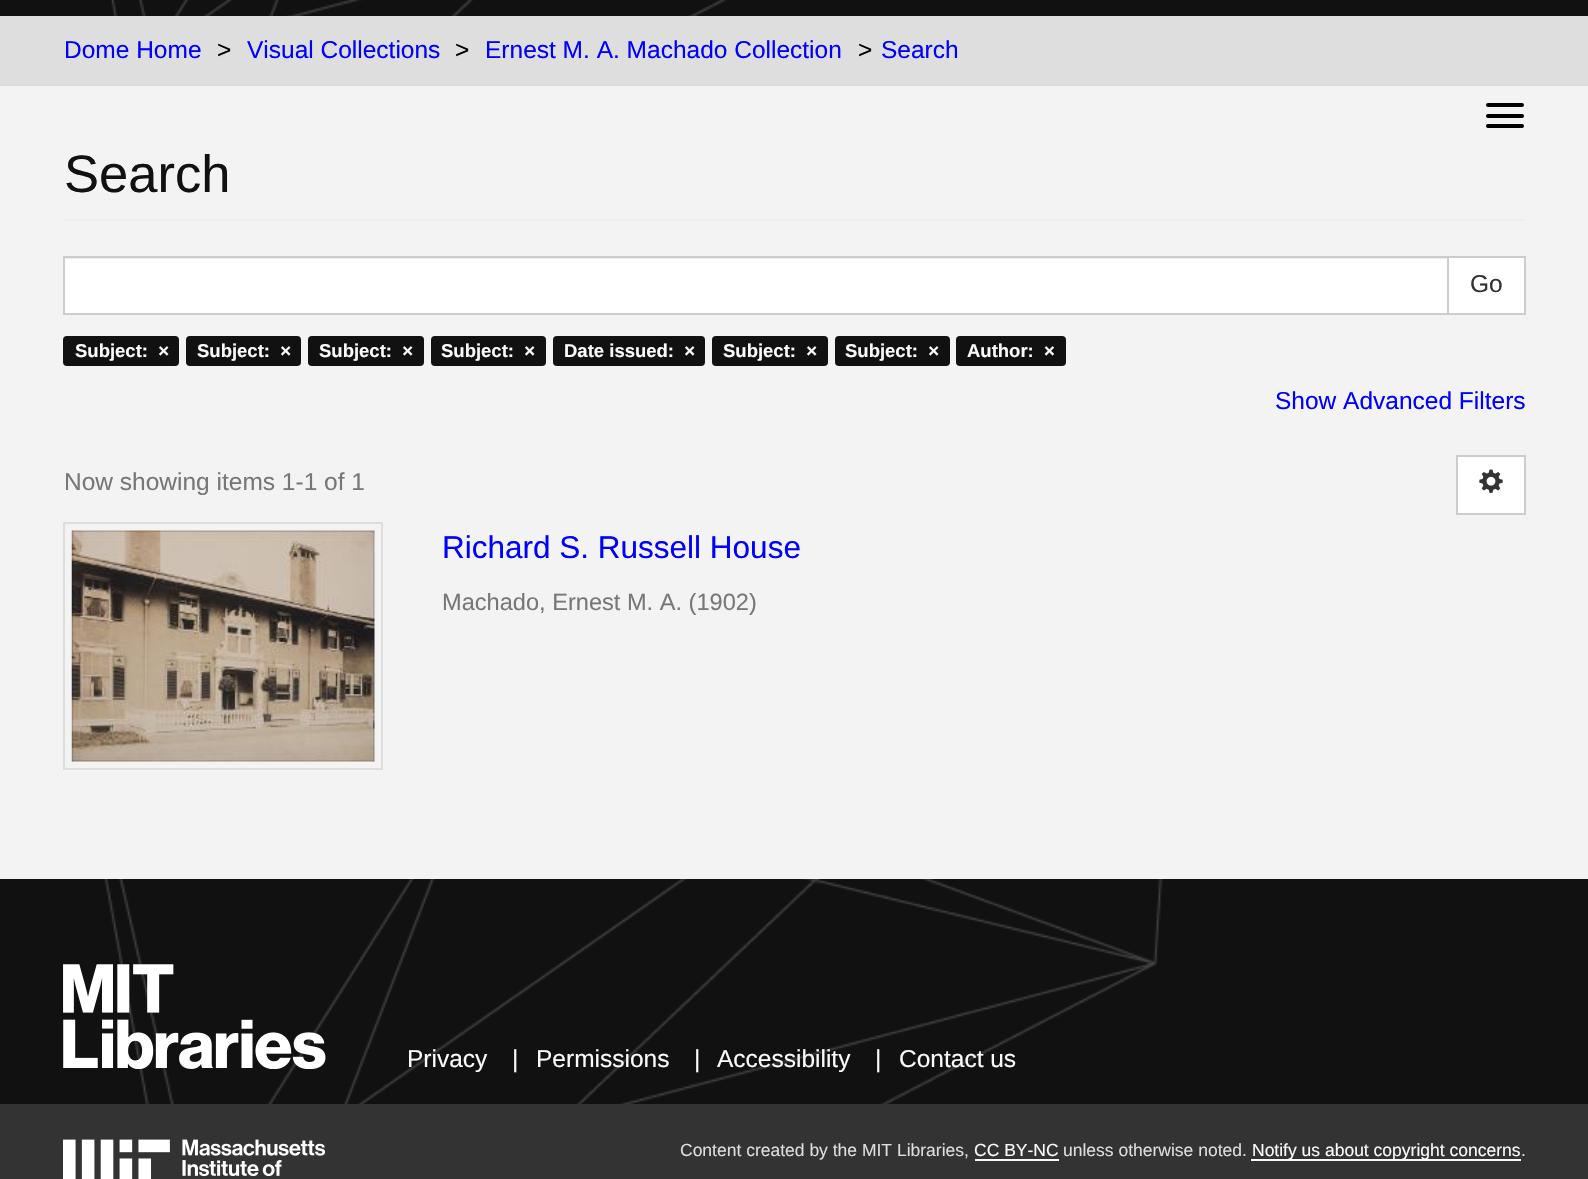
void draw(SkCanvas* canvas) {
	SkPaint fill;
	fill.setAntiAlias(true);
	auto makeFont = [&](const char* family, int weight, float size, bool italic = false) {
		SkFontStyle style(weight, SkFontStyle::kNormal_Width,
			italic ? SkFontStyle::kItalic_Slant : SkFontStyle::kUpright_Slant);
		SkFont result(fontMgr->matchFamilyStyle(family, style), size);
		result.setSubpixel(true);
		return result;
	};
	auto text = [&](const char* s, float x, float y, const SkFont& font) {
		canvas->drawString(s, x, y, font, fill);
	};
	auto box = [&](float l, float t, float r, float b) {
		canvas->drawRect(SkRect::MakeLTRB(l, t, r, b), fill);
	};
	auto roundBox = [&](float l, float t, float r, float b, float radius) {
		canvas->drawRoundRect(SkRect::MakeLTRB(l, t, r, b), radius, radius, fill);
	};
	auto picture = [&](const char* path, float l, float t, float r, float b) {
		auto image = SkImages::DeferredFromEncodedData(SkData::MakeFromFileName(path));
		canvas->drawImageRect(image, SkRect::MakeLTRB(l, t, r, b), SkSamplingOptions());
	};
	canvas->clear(0xFFF3F3F3);
	fill.setColor(0xFF111111);
	box(0, 0, 1588, 16);
	picture("image0.png", 111, 0, 727, 16);
	fill.setColor(0xFFDEDEDE);
	box(0, 16, 1588, 86);
	fill.setColor(0xFF000000);
	roundBox(1486, 103, 1524, 107, 2);
	roundBox(1486, 114, 1524, 118, 2);
	roundBox(1486, 124, 1524, 128, 2);
	fill.setColor(0xFFEEEEEE);
	box(63, 219, 1526, 221);
	fill.setColor(0xFFFFFFFF);
	box(65, 259, 1447, 313);
	fill.setColor(0xFFECECEC);
	box(65, 258, 1447, 259);
	fill.setColor(0xFFFFFFFF);
	canvas->drawRect(SkRect::MakeLTRB(1448, 257, 1525, 314), fill);
	fill.setStyle(SkPaint::kStroke_Style);
	fill.setStrokeWidth(2);
	fill.setColor(0xFFCCCCCC);
	canvas->drawRect(SkRect::MakeLTRB(1448, 257, 1525, 314), fill);
	canvas->drawRect(SkRect::MakeLTRB(64, 257, 1448, 314), fill);
	fill.setStyle(SkPaint::kFill_Style);
	fill.setColor(0xFF111111);
	roundBox(63, 336, 179, 366, 4);
	roundBox(186, 336, 301, 366, 4);
	roundBox(308, 336, 424, 366, 4);
	roundBox(431, 336, 546, 366, 4);
	roundBox(553, 336, 705, 366, 4);
	roundBox(712, 336, 828, 366, 4);
	roundBox(835, 336, 950, 366, 4);
	roundBox(956, 336, 1066, 366, 4);
	fill.setColor(0xFFFFFFFF);
	canvas->drawRect(SkRect::MakeLTRB(1457, 456, 1525, 514), fill);
	fill.setStyle(SkPaint::kStroke_Style);
	fill.setColor(0xFFCCCCCC);
	canvas->drawRect(SkRect::MakeLTRB(1457, 456, 1525, 514), fill);
	picture("image1.png", 1479, 469, 1503, 493);
	fill.setColor(0xFFDDDDDD);
	canvas->drawRect(SkRect::MakeLTRB(64, 523, 382, 769), fill);
	picture("image2.png", 71, 530, 375, 762);
	fill.setStyle(SkPaint::kFill_Style);
	fill.setColor(0xFF111111);
	box(0, 879, 1588, 1104);
	picture("image3.png", 104, 879, 1163, 1104);
	picture("image4.png", 63, 964, 326, 1069);
	fill.setColor(0xFF333333);
	box(0, 1104, 1588, 1179);
	picture("image5.png", 63, 1139, 325, 1179);
	fill.setColor(0xFFFAFAFA);
	box(975, 1159, 1059, 1161);
	box(1251, 1159, 1521, 1161);
	auto font1 = makeFont("Liberation Sans", 400, 24.5f);
	fill.setColor(0xFF0000FF);
	text("Dome Home", 64, 58, font1);
	fill.setColor(0xFF000000);
	text(">", 217, 58, font1);
	fill.setColor(0xFF0000FF);
	text("Visual Collections", 247, 58, font1);
	fill.setColor(0xFF000000);
	text(">", 455, 58, font1);
	fill.setColor(0xFF0000FF);
	text("Ernest M. A. Machado Collection", 485, 58, font1);
	fill.setColor(0xFF000000);
	text(">", 858, 58, font1);
	fill.setColor(0xFF0000FF);
	text("Search", 881, 58, font1);
	auto font2 = makeFont("Liberation Sans", 400, 52.5f);
	fill.setColor(0xFF111111);
	text("Search", 64, 192, font2);
	fill.setColor(0xFF333333);
	text("Go", 1470, 292, font1);
	auto font3 = makeFont("Liberation Sans", 700, 18.5f);
	fill.setColor(0xFFFAFAFA);
	text("Subject:  ×", 75, 357, font3);
	text("Subject:  ×", 197, 357, font3);
	text("Subject:  ×", 319, 357, font3);
	text("Subject:  ×", 441, 357, font3);
	text("Date issued:  ×", 564, 357, font3);
	text("Subject:  ×", 723, 357, font3);
	text("Subject:  ×", 845, 357, font3);
	text("Author:  ×", 967, 357, font3);
	fill.setColor(0xFF0000FF);
	text("Show Advanced Filters", 1275, 409, font1);
	fill.setColor(0xFF777777);
	text("Now showing items 1-1 of 1", 64, 490, font1);
	auto font4 = makeFont("Liberation Sans", 400, 31.5f);
	fill.setColor(0xFF0000FF);
	text("Richard S. Russell House", 442, 558, font4);
	auto font5 = makeFont("Liberation Sans", 400, 23.6f);
	fill.setColor(0xFF777777);
	text("Machado, Ernest M. A. (1902)", 442, 610, font5);
	fill.setColor(0xFFFAFAFA);
	text("Privacy", 407, 1067, font1);
	text("|", 512, 1067, font1);
	text("Permissions", 536, 1067, font1);
	text("|", 694, 1067, font1);
	text("Accessibility", 717, 1067, font1);
	text("|", 875, 1067, font1);
	text("Contact us", 899, 1067, font1);
	auto font6 = makeFont("Liberation Sans", 400, 17.5f);
	fill.setColor(0xFFDEDEDE);
	text("Content created by the MIT Libraries,", 680, 1156, font6);
	fill.setColor(0xFFFAFAFA);
	text("CC BY-NC", 974, 1156, font6);
	fill.setColor(0xFFDEDEDE);
	text("unless otherwise noted.", 1063, 1156, font6);
	fill.setColor(0xFFFAFAFA);
	text("Notify us about copyright concerns", 1252, 1156, font6);
	fill.setColor(0xFFDEDEDE);
	text(".", 1521, 1156, font6);
}
